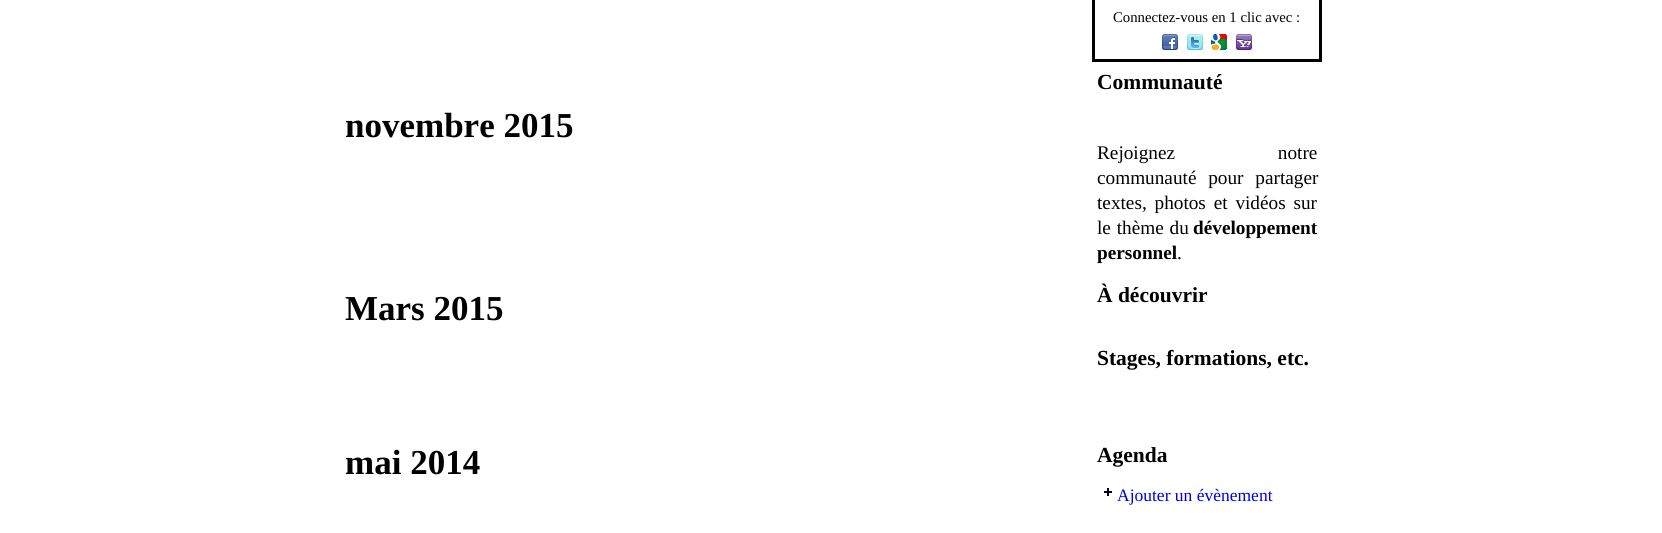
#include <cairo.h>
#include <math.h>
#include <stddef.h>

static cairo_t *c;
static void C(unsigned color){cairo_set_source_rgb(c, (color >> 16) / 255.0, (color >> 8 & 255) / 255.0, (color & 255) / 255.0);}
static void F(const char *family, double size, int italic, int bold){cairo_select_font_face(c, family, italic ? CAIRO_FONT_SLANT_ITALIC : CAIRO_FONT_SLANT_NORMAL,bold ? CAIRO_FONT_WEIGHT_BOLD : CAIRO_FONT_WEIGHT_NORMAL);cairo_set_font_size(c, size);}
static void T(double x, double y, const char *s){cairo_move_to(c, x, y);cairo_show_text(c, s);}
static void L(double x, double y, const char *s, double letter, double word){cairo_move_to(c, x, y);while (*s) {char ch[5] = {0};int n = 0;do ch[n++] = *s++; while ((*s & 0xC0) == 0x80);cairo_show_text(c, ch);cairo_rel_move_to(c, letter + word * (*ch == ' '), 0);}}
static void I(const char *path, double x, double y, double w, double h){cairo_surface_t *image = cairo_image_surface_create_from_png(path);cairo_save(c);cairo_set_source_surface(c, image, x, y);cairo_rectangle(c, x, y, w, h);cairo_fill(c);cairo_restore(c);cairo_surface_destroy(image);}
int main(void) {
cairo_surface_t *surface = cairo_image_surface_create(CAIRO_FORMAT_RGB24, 1662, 533);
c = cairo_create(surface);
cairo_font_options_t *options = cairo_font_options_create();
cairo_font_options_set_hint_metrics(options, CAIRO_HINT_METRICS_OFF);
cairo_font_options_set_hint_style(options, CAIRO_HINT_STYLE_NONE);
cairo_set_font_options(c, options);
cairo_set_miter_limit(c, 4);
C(0xffffff);
cairo_paint(c);
F("Liberation Serif",35,0,1);
C(0x000000);
T(345,137,"novembre 2015");
T(345,320,"Mars 2015");
T(345,474,"mai 2014");
cairo_rectangle(c,1093.5,-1.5,227,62);
cairo_set_line_width(c,3);
cairo_stroke(c);
F("Liberation Serif",14.75,0,0);
T(1113,22,"Connectez-vous en 1 clic avec :");
I("1.png",1162,34,16,16);
I("2.png",1187,34,16,16);
I("3.png",1211,34,16,16);
I("4.png",1236,34,16,16);
F("Liberation Serif",21.5,0,1);
T(1097,89,"Communauté");
F("Liberation Serif",19.25,0,0);
L(1097,159,"Rejoignez notre",0,98);
L(1097,184,"communauté pour partager",0,7);
L(1097,209,"textes, photos et vidéos sur",0,3);
L(1097,234,"le thème du",0,1);
F("Liberation Serif",19.25,0,1);
T(1193,234,"développement");
T(1097,259,"personnel");
F("Liberation Serif",19.25,0,0);
T(1177,259,".");
F("Liberation Serif",21.5,0,1);
T(1097,302,"À découvrir");
T(1097,365,"Stages, formations, etc.");
T(1097,462,"Agenda");
I("5.png",1104,488,8,8);
F("Liberation Serif",17.5,0,0);
C(0x0000ee);
T(1117,501,"Ajouter un évènement");
cairo_surface_write_to_png(surface, "o.png");
cairo_font_options_destroy(options);
cairo_destroy(c);
cairo_surface_destroy(surface);
return 0;
}
